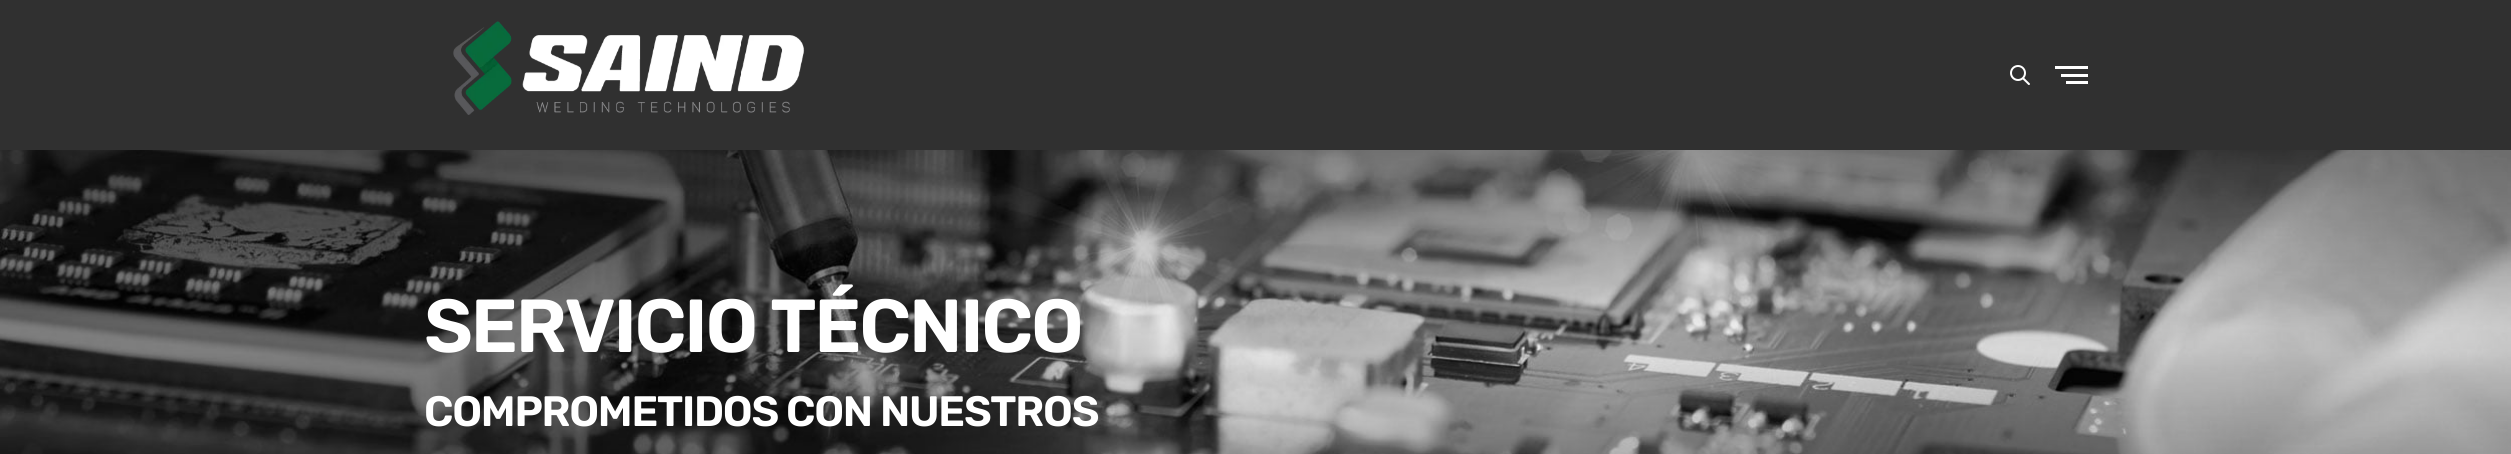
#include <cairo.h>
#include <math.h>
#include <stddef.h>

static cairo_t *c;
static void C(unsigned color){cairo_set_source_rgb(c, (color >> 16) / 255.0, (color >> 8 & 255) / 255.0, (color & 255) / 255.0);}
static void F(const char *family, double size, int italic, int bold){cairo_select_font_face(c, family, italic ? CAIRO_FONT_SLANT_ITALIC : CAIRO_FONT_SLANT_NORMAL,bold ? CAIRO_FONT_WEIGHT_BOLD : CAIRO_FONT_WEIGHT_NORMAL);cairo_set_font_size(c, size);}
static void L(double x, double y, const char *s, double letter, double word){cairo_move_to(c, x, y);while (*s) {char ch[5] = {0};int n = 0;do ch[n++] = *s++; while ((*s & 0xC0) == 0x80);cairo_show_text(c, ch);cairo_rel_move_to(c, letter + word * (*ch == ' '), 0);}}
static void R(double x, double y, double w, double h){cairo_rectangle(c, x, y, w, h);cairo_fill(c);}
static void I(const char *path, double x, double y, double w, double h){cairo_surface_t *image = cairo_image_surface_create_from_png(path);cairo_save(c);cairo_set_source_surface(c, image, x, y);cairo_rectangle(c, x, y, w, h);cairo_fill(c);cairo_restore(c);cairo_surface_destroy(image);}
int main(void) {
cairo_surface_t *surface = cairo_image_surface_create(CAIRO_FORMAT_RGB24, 2511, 454);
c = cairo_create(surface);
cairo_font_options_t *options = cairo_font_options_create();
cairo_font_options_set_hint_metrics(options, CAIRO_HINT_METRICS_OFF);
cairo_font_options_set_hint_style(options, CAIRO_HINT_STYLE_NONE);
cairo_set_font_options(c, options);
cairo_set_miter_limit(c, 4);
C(0xffffff);
cairo_paint(c);
C(0x303030);
R(0,0,2511,150);
I("1.png",453,21,352,94);
I("2.png",2010,65,20,20);
C(0xffffff);
R(2055,66,33,3);
R(2061,74,27,3);
R(2066,81,22,3);
I("3.png",0,150,2511,304);
F("Rubik SemiBold",75,0,0);
L(424,352,"SERVICIO TÉCNICO",-2.25,0);
F("Rubik SemiBold",42.5,0,0);
L(424,426,"COMPROMETIDOS CON NUESTROS",-1.25,0);
cairo_surface_write_to_png(surface, "o.png");
cairo_font_options_destroy(options);
cairo_destroy(c);
cairo_surface_destroy(surface);
return 0;
}
